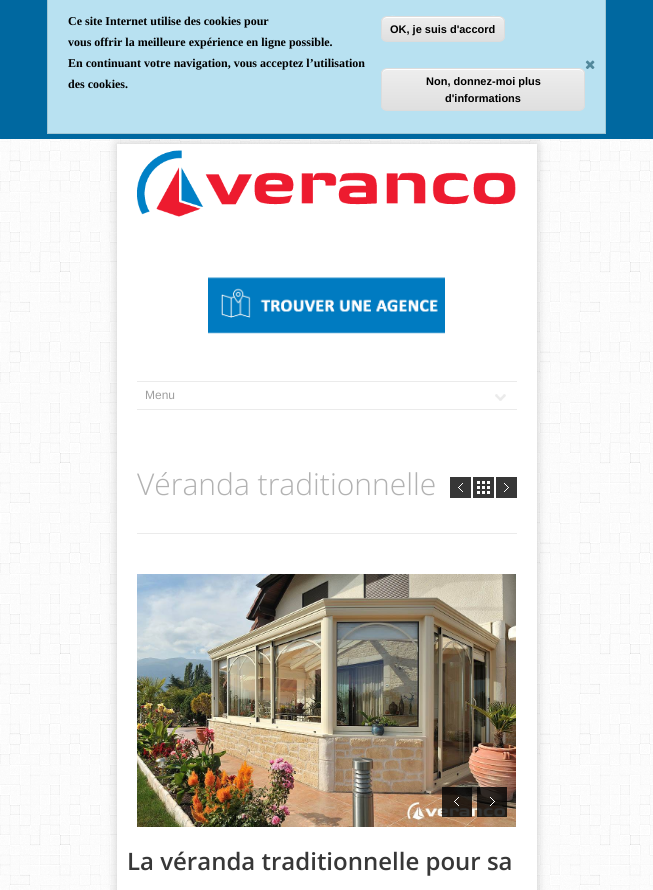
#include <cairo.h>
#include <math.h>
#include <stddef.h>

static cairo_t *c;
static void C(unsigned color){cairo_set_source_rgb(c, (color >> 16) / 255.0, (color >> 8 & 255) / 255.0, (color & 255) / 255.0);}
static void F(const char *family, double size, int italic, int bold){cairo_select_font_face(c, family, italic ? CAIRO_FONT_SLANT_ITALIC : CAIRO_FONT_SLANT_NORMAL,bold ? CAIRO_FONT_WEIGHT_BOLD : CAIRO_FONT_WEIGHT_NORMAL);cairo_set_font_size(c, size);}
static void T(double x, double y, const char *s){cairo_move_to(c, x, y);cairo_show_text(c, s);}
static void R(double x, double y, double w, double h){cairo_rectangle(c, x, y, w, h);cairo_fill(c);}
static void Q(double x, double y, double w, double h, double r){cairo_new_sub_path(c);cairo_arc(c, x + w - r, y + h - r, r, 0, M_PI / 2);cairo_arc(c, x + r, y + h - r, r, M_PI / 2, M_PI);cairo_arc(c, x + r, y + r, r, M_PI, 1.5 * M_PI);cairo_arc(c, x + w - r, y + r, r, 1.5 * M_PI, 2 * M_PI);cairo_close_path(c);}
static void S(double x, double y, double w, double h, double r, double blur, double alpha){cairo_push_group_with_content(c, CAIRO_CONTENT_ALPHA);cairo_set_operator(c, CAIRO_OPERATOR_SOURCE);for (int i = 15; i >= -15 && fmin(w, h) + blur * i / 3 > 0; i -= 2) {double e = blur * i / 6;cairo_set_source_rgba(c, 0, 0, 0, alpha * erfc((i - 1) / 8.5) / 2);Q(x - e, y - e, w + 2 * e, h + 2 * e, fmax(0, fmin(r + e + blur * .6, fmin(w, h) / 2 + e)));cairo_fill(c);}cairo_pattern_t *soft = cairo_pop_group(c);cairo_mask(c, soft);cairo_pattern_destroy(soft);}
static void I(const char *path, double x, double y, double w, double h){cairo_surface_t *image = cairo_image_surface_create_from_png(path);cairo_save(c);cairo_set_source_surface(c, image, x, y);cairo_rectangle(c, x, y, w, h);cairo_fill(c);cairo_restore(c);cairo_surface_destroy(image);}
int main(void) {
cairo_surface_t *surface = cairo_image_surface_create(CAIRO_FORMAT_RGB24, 653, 890);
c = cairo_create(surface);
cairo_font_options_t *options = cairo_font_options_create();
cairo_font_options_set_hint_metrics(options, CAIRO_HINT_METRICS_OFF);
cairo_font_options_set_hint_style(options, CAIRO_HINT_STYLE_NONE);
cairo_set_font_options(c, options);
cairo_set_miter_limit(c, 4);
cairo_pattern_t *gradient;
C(0xffffff);
cairo_paint(c);
I("1.png",0,139,653,751);
C(0x000000);
S(117,144,420,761,0,5,.2);
C(0x0068a0);
R(0,0,653,139);
C(0xb8e1f1);
cairo_rectangle(c,47.5,-.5,558,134);
cairo_fill_preserve(c);
C(0xa1c7d5);
cairo_set_line_width(c,1);
cairo_stroke(c);
F("Liberation Serif",12,0,1);
C(0x000000);
T(68,25,"Ce site Internet utilise des cookies pour");
T(68,46,"vous offrir la meilleure expérience en ligne possible.");
T(68,67,"En continuant votre navigation, vous acceptez l’utilisation");
T(68,88,"des cookies.");
cairo_save(c);
Q(381,16,124,26,6);
cairo_clip(c);
gradient = cairo_pattern_create_linear(443,17,443,41);
cairo_pattern_add_color_stop_rgba(gradient,.05,0.929,0.929,0.929,1);
cairo_pattern_add_color_stop_rgba(gradient,1,0.875,0.875,0.875,1);
cairo_set_source(c,gradient);
cairo_pattern_destroy(gradient);
R(381,17,124,24);
cairo_restore(c);
C(0xffffff);
cairo_new_path(c);
cairo_move_to(c,387,18);
cairo_line_to(c,499,18);
cairo_curve_to(c,502,18,504,20,504,23);
cairo_curve_to(c,504,12,485,17,480,17);
cairo_line_to(c,406,17);
cairo_curve_to(c,401,17,382,12,382,23);
cairo_curve_to(c,382,20,384,18,387,18);
cairo_close_path(c);
cairo_fill(c);
Q(381.5,16.5,123,25,5.5);
C(0xdcdcdc);
cairo_stroke(c);
F("Liberation Sans",11,0,1);
C(0x000000);
T(390,33,"OK, je suis d'accord");
cairo_save(c);
Q(381,68,204,43,6);
cairo_clip(c);
gradient = cairo_pattern_create_linear(483,69,483,110);
cairo_pattern_add_color_stop_rgba(gradient,.05,0.929,0.929,0.929,1);
cairo_pattern_add_color_stop_rgba(gradient,1,0.875,0.875,0.875,1);
cairo_set_source(c,gradient);
cairo_pattern_destroy(gradient);
R(381,69,204,41);
cairo_restore(c);
C(0xffffff);
cairo_new_path(c);
cairo_move_to(c,387,70);
cairo_line_to(c,579,70);
cairo_curve_to(c,582,70,584,72,584,75);
cairo_line_to(c,584,74);
cairo_curve_to(c,584,71,582,69,579,69);
cairo_line_to(c,387,69);
cairo_curve_to(c,384,69,382,71,382,74);
cairo_line_to(c,382,75);
cairo_curve_to(c,382,72,384,70,387,70);
cairo_close_path(c);
cairo_fill(c);
Q(381.5,68.5,203,42,5.5);
C(0xdcdcdc);
cairo_stroke(c);
C(0x000000);
T(426,85,"Non, donnez-moi plus");
T(445,102,"d'informations");
I("2.png",585,60,10,9);
C(0xffffff);
R(117,144,420,746);
I("3.png",137,150,379,67);
I("4.png",208,277,237,57);
I("5.png",495,394,11,7);
C(0xebebeb);
R(137,381,380,1);
R(137,409,380,1);
F("Liberation Sans",12,0,0);
C(0x9e9e9e);
T(145,399,"Menu");
C(0xebebeb);
R(137,533,380,1);
F("Open Sans Light",30,0,0);
C(0xb2b2b2);
T(137,495,"Véranda traditionnelle");
C(0x373737);
R(450,477,21,21);
I("6.png",458,483,5,9);
R(473,477,21,21);
I("7.png",477,481,13,13);
R(496,477,21,21);
I("8.png",504,483,5,9);
I("9.png",137,574,379,253);
cairo_set_source_rgba(c,0,0,0,0.8);
R(442,787,30,30);
I("10.png",454,797,5,9);
R(477,787,30,30);
I("11.png",490,797,5,9);
F("Open Sans SemiBold",24,0,0);
C(0x373737);
T(127,870,"La véranda traditionnelle pour sa");
cairo_surface_write_to_png(surface, "o.png");
cairo_font_options_destroy(options);
cairo_destroy(c);
cairo_surface_destroy(surface);
return 0;
}
